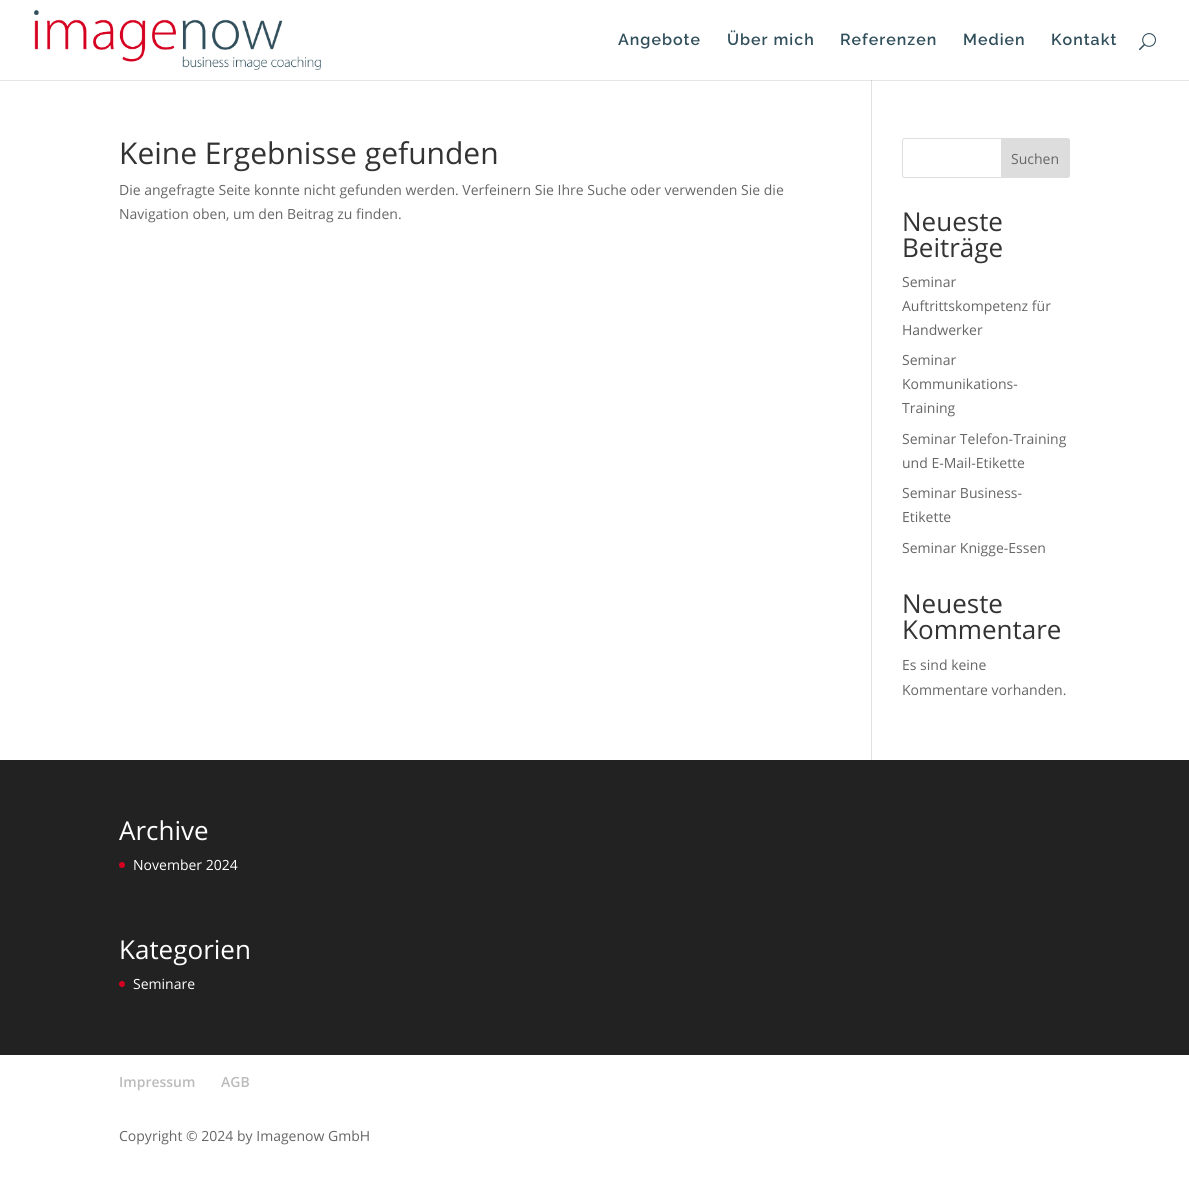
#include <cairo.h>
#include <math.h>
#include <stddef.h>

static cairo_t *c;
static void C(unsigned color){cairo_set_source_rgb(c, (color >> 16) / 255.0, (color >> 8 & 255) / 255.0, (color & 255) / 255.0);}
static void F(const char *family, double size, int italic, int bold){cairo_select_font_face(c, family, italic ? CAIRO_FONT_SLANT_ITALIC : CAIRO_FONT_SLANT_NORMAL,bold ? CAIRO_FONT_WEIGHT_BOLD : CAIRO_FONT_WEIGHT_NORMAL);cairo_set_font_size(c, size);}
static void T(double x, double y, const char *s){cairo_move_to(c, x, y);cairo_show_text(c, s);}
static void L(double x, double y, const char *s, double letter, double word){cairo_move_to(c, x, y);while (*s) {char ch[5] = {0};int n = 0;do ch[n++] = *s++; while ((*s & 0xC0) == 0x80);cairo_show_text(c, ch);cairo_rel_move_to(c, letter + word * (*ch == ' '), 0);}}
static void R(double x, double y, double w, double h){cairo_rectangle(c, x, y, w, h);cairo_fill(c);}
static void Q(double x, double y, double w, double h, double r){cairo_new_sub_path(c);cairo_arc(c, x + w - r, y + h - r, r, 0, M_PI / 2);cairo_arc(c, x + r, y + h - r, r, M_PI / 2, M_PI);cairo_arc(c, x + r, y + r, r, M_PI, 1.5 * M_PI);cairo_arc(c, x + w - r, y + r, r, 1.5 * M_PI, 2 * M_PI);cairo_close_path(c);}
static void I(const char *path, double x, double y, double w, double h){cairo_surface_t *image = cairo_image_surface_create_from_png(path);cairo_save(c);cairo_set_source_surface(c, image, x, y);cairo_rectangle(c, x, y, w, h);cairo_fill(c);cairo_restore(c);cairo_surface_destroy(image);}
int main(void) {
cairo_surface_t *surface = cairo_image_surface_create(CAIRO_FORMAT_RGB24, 1189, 1178);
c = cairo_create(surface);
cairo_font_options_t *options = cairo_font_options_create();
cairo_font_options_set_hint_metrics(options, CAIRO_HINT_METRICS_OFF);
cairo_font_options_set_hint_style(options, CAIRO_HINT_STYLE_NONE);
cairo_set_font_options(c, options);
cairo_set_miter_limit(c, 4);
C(0xffffff);
cairo_paint(c);
C(0xe6e6e6);
R(0,80,1189,1);
I("1.png",34,10,287,60);
F("Raleway Thin",16,0,0);
C(0x314e5b);
L(618,45,"Angebote",1,0);
L(727,45,"Über mich",1,0);
L(840,45,"Referenzen",1,0);
L(963,45,"Medien",1,0);
L(1051,45,"Kontakt",1,0);
I("2.png",1139,33,17,18);
C(0xe2e2e2);
R(871,80,1,680);
C(0xcbcbcb);
R(871,80,1,1);
F("Open Sans",30,0,0);
C(0x333333);
T(119,164,"Keine Ergebnisse gefunden");
F("Open Sans",14,0,0);
C(0x666666);
T(119,195,"Die angefragte Seite konnte nicht gefunden werden. Verfeinern Sie Ihre Suche oder verwenden Sie die");
T(119,219,"Navigation oben, um den Beitrag zu finden.");
Q(902.5,138.5,167,39,2.5);
C(0xdddddd);
cairo_set_line_width(c,1);
cairo_stroke(c);
cairo_new_path(c);
cairo_move_to(c,1001.5,138.5);
cairo_line_to(c,1067,138.5);
cairo_curve_to(c,1068.5,138.5,1069.5,139.5,1069.5,141);
cairo_line_to(c,1069.5,175);
cairo_curve_to(c,1069.5,176.5,1068.5,177.5,1067,177.5);
cairo_line_to(c,1001.5,177.5);
cairo_close_path(c);
cairo_fill_preserve(c);
cairo_stroke(c);
C(0x666666);
T(1011,164,"Suchen");
F("Open Sans",26,0,0);
C(0x333333);
T(902,231,"Neueste");
T(902,257,"Beiträge");
F("Open Sans",14,0,0);
C(0x666666);
T(902,287,"Seminar");
T(902,311,"Auftrittskompetenz für");
T(902,335,"Handwerker");
T(902,365,"Seminar");
T(902,389,"Kommunikations-");
T(902,413,"Training");
T(902,444,"Seminar Telefon-Training");
T(902,468,"und E-Mail-Etikette");
T(902,498,"Seminar Business-");
T(902,522,"Etikette");
T(902,553,"Seminar Knigge-Essen");
F("Open Sans",26,0,0);
C(0x333333);
T(902,613,"Neueste");
T(902,639,"Kommentare");
F("Open Sans",14,0,0);
C(0x666666);
T(902,670,"Es sind keine");
T(902,695,"Kommentare vorhanden.");
C(0x222222);
R(0,760,1189,295);
F("Open Sans",26,0,0);
C(0xffffff);
T(119,840,"Archive");
C(0xd60020);
cairo_new_path(c);
cairo_arc(c,122,865,3,0,2 * M_PI);
cairo_fill(c);
F("Open Sans",14,0,0);
C(0xffffff);
T(133,870,"November 2024");
F("Open Sans",26,0,0);
T(119,959,"Kategorien");
C(0xd60020);
cairo_new_path(c);
cairo_arc(c,122,984,3,0,2 * M_PI);
cairo_fill(c);
F("Open Sans",14,0,0);
C(0xffffff);
T(133,989,"Seminare");
F("Open Sans SemiBold",14,0,0);
C(0xbbbbbb);
T(119,1087,"Impressum");
T(221,1087,"AGB");
F("Open Sans",14,0,0);
C(0x666666);
T(119,1141,"Copyright © 2024 by Imagenow GmbH");
cairo_surface_write_to_png(surface, "o.png");
cairo_font_options_destroy(options);
cairo_destroy(c);
cairo_surface_destroy(surface);
return 0;
}
